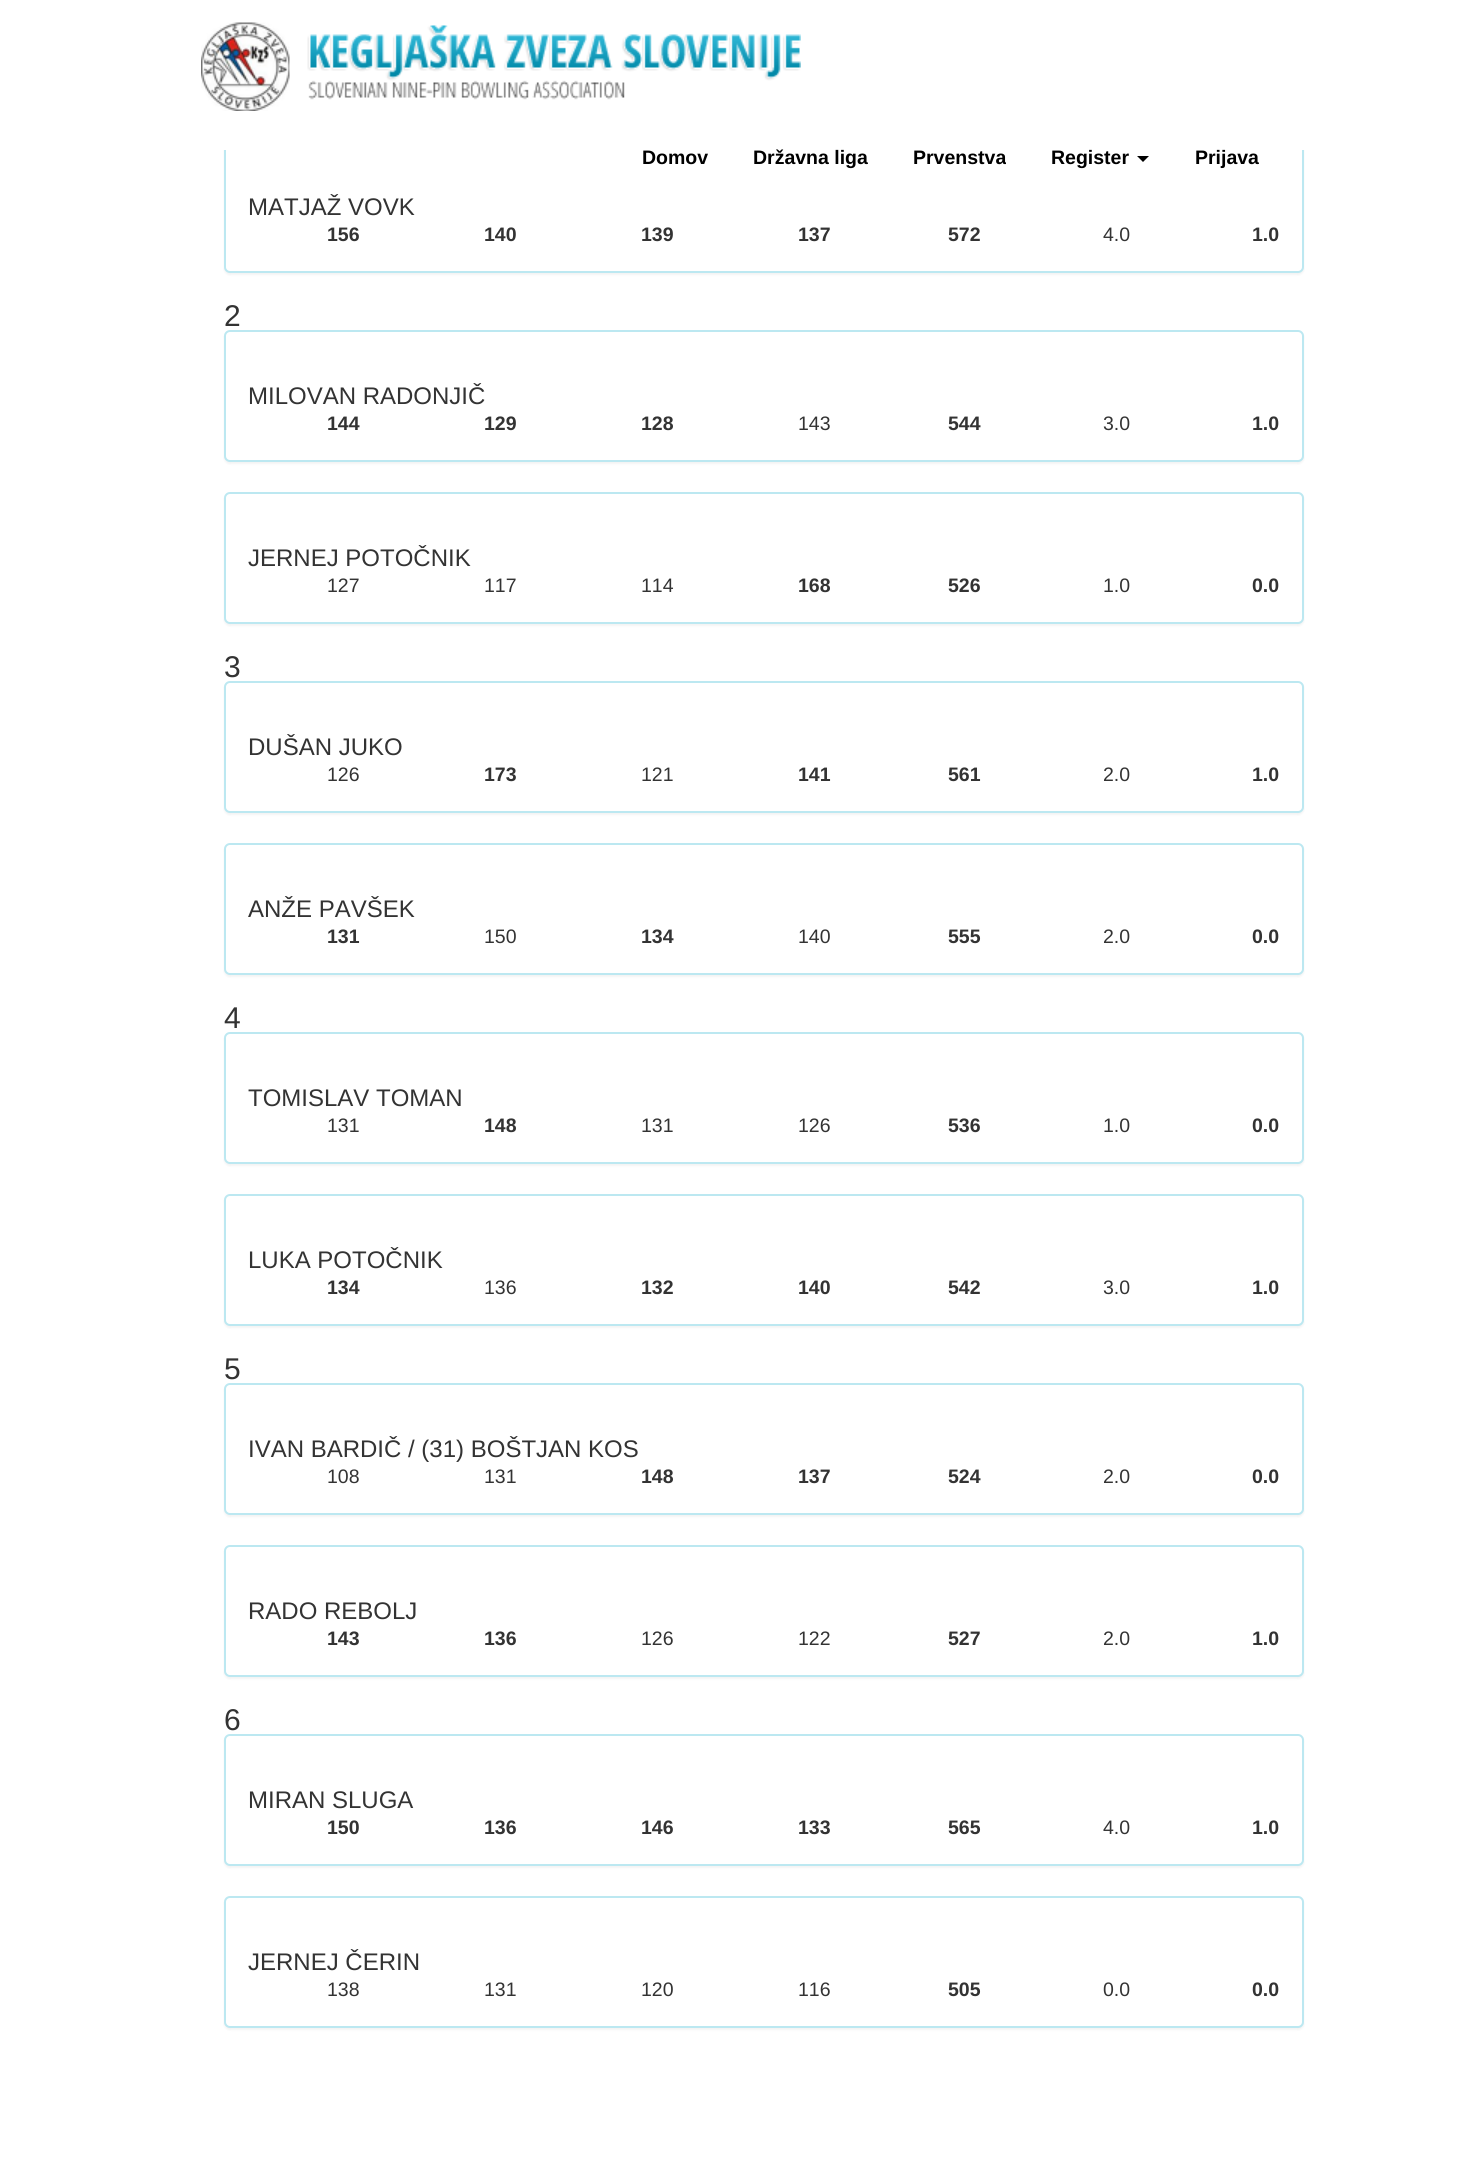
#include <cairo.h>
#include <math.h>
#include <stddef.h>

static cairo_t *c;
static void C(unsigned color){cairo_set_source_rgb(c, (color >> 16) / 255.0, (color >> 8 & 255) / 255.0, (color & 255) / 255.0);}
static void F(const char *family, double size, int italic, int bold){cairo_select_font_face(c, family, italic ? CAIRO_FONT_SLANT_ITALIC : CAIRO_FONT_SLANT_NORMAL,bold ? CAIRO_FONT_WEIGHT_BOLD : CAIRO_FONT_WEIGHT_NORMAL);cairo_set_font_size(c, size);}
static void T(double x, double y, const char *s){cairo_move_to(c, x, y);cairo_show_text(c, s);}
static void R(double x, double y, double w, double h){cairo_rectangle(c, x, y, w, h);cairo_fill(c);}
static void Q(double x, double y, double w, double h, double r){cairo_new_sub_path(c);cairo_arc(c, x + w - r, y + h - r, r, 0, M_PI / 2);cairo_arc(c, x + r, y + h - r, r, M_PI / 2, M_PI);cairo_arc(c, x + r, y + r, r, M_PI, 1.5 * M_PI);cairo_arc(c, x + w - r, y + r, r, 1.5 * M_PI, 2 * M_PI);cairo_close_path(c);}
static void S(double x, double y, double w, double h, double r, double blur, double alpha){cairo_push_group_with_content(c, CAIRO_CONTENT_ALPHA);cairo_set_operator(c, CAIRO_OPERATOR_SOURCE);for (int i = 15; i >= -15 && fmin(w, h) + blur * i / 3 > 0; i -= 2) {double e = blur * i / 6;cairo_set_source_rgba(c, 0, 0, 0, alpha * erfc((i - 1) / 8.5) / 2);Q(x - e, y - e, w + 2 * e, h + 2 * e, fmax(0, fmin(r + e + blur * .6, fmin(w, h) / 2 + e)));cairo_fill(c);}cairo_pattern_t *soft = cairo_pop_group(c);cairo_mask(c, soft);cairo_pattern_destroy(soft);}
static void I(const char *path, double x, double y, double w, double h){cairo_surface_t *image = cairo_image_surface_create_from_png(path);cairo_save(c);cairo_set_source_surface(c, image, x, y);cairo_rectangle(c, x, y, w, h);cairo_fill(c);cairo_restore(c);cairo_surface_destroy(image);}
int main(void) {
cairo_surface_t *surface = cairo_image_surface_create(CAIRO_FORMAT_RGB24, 1482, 2177);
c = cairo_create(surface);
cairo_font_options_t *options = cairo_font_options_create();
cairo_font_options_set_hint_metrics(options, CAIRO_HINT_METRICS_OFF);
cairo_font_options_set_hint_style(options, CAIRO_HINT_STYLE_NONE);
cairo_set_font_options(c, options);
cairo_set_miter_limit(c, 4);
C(0xffffff);
cairo_paint(c);
C(0x000000);
S(224,143,1080,132,6,1,.05);
C(0xffffff);
Q(225,142,1078,130,5);
cairo_fill_preserve(c);
C(0xbce8f1);
cairo_stroke(c);
C(0xffffff);
R(223,141,1082,9);
I("1.png",201,22,600,89);
F("Liberation Sans",19.5,0,1);
C(0x000000);
T(642,164,"Domov");
T(753,164,"Državna liga");
T(913,164,"Prvenstva");
T(1051,164,"Register");
cairo_new_path(c);
cairo_move_to(c,1137,156);
cairo_line_to(c,1149,156);
cairo_line_to(c,1143,162);
cairo_close_path(c);
cairo_fill(c);
T(1195,164,"Prijava");
F("Liberation Sans",24,0,0);
C(0x333333);
T(248,215,"MATJAŽ VOVK");
F("Liberation Sans",19.5,0,1);
T(327,241,"156");
T(484,241,"140");
T(641,241,"139");
T(798,241,"137");
T(948,241,"572");
F("Liberation Sans",19.5,0,0);
T(1103,241,"4.0");
F("Liberation Sans",19.5,0,1);
T(1252,241,"1.0");
F("Liberation Sans",30,0,0);
T(224,326,"2");
C(0x000000);
S(224,332,1080,132,6,1,.05);
C(0xffffff);
Q(225,331,1078,130,5);
cairo_fill_preserve(c);
C(0xbce8f1);
cairo_stroke(c);
F("Liberation Sans",24,0,0);
C(0x333333);
T(248,404,"MILOVAN RADONJIČ");
F("Liberation Sans",19.5,0,1);
T(327,430,"144");
T(484,430,"129");
T(641,430,"128");
F("Liberation Sans",19.5,0,0);
T(798,430,"143");
F("Liberation Sans",19.5,0,1);
T(948,430,"544");
F("Liberation Sans",19.5,0,0);
T(1103,430,"3.0");
F("Liberation Sans",19.5,0,1);
T(1252,430,"1.0");
C(0x000000);
S(224,494,1080,132,6,1,.05);
C(0xffffff);
Q(225,493,1078,130,5);
cairo_fill_preserve(c);
C(0xbce8f1);
cairo_stroke(c);
F("Liberation Sans",24,0,0);
C(0x333333);
T(248,566,"JERNEJ POTOČNIK");
F("Liberation Sans",19.5,0,0);
T(327,592,"127");
T(484,592,"117");
T(641,592,"114");
F("Liberation Sans",19.5,0,1);
T(798,592,"168");
T(948,592,"526");
F("Liberation Sans",19.5,0,0);
T(1103,592,"1.0");
F("Liberation Sans",19.5,0,1);
T(1252,592,"0.0");
F("Liberation Sans",30,0,0);
T(224,677,"3");
C(0x000000);
S(224,683,1080,132,6,1,.05);
C(0xffffff);
Q(225,682,1078,130,5);
cairo_fill_preserve(c);
C(0xbce8f1);
cairo_stroke(c);
F("Liberation Sans",24,0,0);
C(0x333333);
T(248,755,"DUŠAN JUKO");
F("Liberation Sans",19.5,0,0);
T(327,781,"126");
F("Liberation Sans",19.5,0,1);
T(484,781,"173");
F("Liberation Sans",19.5,0,0);
T(641,781,"121");
F("Liberation Sans",19.5,0,1);
T(798,781,"141");
T(948,781,"561");
F("Liberation Sans",19.5,0,0);
T(1103,781,"2.0");
F("Liberation Sans",19.5,0,1);
T(1252,781,"1.0");
C(0x000000);
S(224,845,1080,132,6,1,.05);
C(0xffffff);
Q(225,844,1078,130,5);
cairo_fill_preserve(c);
C(0xbce8f1);
cairo_stroke(c);
F("Liberation Sans",24,0,0);
C(0x333333);
T(248,917,"ANŽE PAVŠEK");
F("Liberation Sans",19.5,0,1);
T(327,943,"131");
F("Liberation Sans",19.5,0,0);
T(484,943,"150");
F("Liberation Sans",19.5,0,1);
T(641,943,"134");
F("Liberation Sans",19.5,0,0);
T(798,943,"140");
F("Liberation Sans",19.5,0,1);
T(948,943,"555");
F("Liberation Sans",19.5,0,0);
T(1103,943,"2.0");
F("Liberation Sans",19.5,0,1);
T(1252,943,"0.0");
F("Liberation Sans",30,0,0);
T(224,1028,"4");
C(0x000000);
S(224,1034,1080,132,6,1,.05);
C(0xffffff);
Q(225,1033,1078,130,5);
cairo_fill_preserve(c);
C(0xbce8f1);
cairo_stroke(c);
F("Liberation Sans",24,0,0);
C(0x333333);
T(248,1106,"TOMISLAV TOMAN");
F("Liberation Sans",19.5,0,0);
T(327,1132,"131");
F("Liberation Sans",19.5,0,1);
T(484,1132,"148");
F("Liberation Sans",19.5,0,0);
T(641,1132,"131");
T(798,1132,"126");
F("Liberation Sans",19.5,0,1);
T(948,1132,"536");
F("Liberation Sans",19.5,0,0);
T(1103,1132,"1.0");
F("Liberation Sans",19.5,0,1);
T(1252,1132,"0.0");
C(0x000000);
S(224,1196,1080,132,6,1,.05);
C(0xffffff);
Q(225,1195,1078,130,5);
cairo_fill_preserve(c);
C(0xbce8f1);
cairo_stroke(c);
F("Liberation Sans",24,0,0);
C(0x333333);
T(248,1268,"LUKA POTOČNIK");
F("Liberation Sans",19.5,0,1);
T(327,1294,"134");
F("Liberation Sans",19.5,0,0);
T(484,1294,"136");
F("Liberation Sans",19.5,0,1);
T(641,1294,"132");
T(798,1294,"140");
T(948,1294,"542");
F("Liberation Sans",19.5,0,0);
T(1103,1294,"3.0");
F("Liberation Sans",19.5,0,1);
T(1252,1294,"1.0");
F("Liberation Sans",30,0,0);
T(224,1379,"5");
C(0x000000);
S(224,1385,1080,132,6,1,.05);
C(0xffffff);
Q(225,1384,1078,130,5);
cairo_fill_preserve(c);
C(0xbce8f1);
cairo_stroke(c);
F("Liberation Sans",24,0,0);
C(0x333333);
T(248,1457,"IVAN BARDIČ / (31) BOŠTJAN KOS");
F("Liberation Sans",19.5,0,0);
T(327,1483,"108");
T(484,1483,"131");
F("Liberation Sans",19.5,0,1);
T(641,1483,"148");
T(798,1483,"137");
T(948,1483,"524");
F("Liberation Sans",19.5,0,0);
T(1103,1483,"2.0");
F("Liberation Sans",19.5,0,1);
T(1252,1483,"0.0");
C(0x000000);
S(224,1547,1080,132,6,1,.05);
C(0xffffff);
Q(225,1546,1078,130,5);
cairo_fill_preserve(c);
C(0xbce8f1);
cairo_stroke(c);
F("Liberation Sans",24,0,0);
C(0x333333);
T(248,1619,"RADO REBOLJ");
F("Liberation Sans",19.5,0,1);
T(327,1645,"143");
T(484,1645,"136");
F("Liberation Sans",19.5,0,0);
T(641,1645,"126");
T(798,1645,"122");
F("Liberation Sans",19.5,0,1);
T(948,1645,"527");
F("Liberation Sans",19.5,0,0);
T(1103,1645,"2.0");
F("Liberation Sans",19.5,0,1);
T(1252,1645,"1.0");
F("Liberation Sans",30,0,0);
T(224,1730,"6");
C(0x000000);
S(224,1736,1080,132,6,1,.05);
C(0xffffff);
Q(225,1735,1078,130,5);
cairo_fill_preserve(c);
C(0xbce8f1);
cairo_stroke(c);
F("Liberation Sans",24,0,0);
C(0x333333);
T(248,1808,"MIRAN SLUGA");
F("Liberation Sans",19.5,0,1);
T(327,1834,"150");
T(484,1834,"136");
T(641,1834,"146");
T(798,1834,"133");
T(948,1834,"565");
F("Liberation Sans",19.5,0,0);
T(1103,1834,"4.0");
F("Liberation Sans",19.5,0,1);
T(1252,1834,"1.0");
C(0x000000);
S(224,1898,1080,132,6,1,.05);
C(0xffffff);
Q(225,1897,1078,130,5);
cairo_fill_preserve(c);
C(0xbce8f1);
cairo_stroke(c);
F("Liberation Sans",24,0,0);
C(0x333333);
T(248,1970,"JERNEJ ČERIN");
F("Liberation Sans",19.5,0,0);
T(327,1996,"138");
T(484,1996,"131");
T(641,1996,"120");
T(798,1996,"116");
F("Liberation Sans",19.5,0,1);
T(948,1996,"505");
F("Liberation Sans",19.5,0,0);
T(1103,1996,"0.0");
F("Liberation Sans",19.5,0,1);
T(1252,1996,"0.0");
cairo_surface_write_to_png(surface, "o.png");
cairo_font_options_destroy(options);
cairo_destroy(c);
cairo_surface_destroy(surface);
return 0;
}
